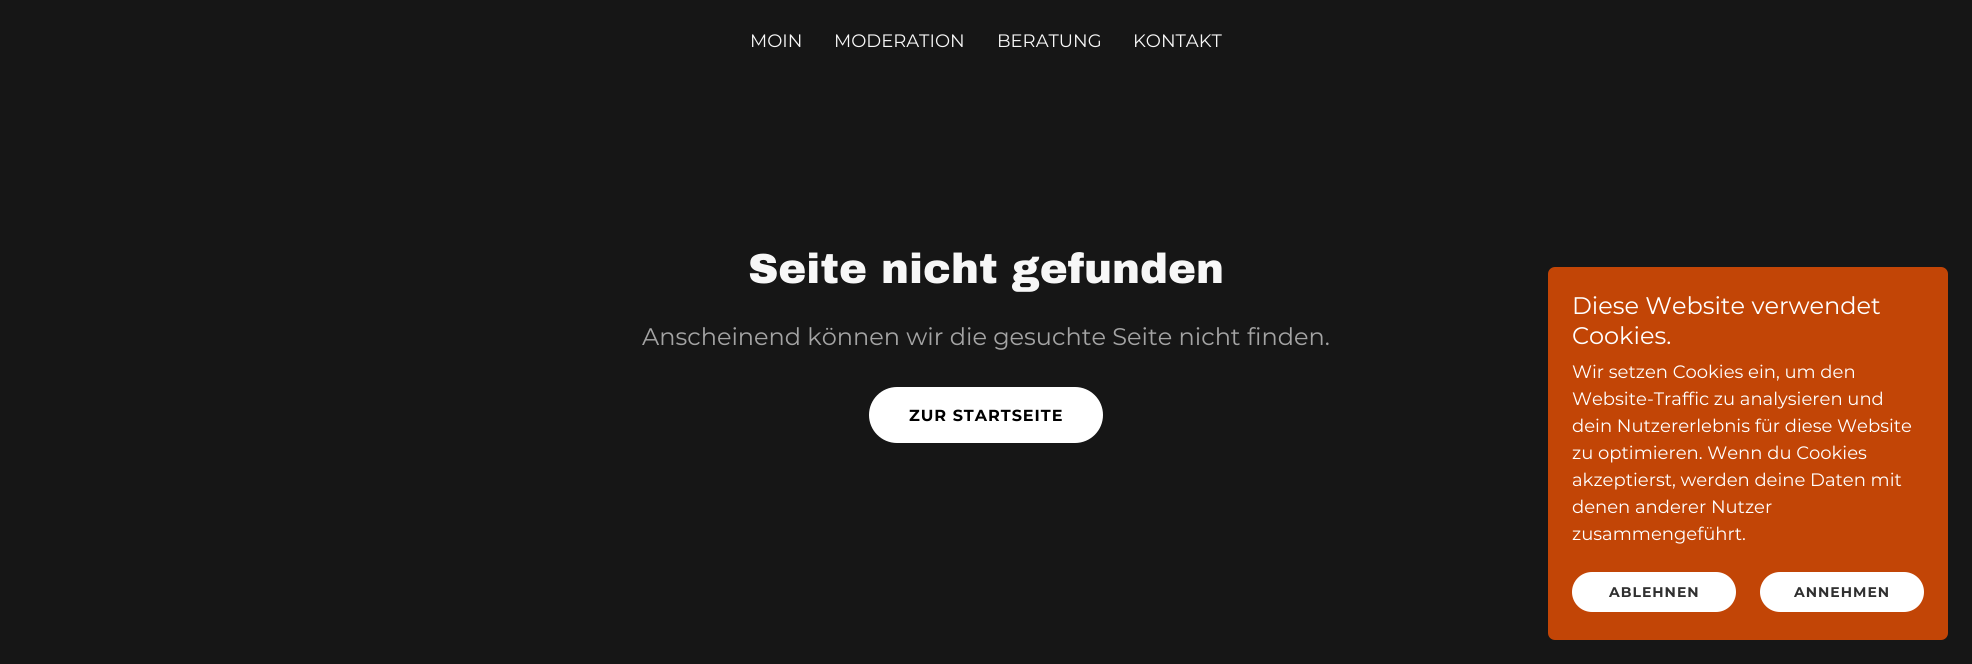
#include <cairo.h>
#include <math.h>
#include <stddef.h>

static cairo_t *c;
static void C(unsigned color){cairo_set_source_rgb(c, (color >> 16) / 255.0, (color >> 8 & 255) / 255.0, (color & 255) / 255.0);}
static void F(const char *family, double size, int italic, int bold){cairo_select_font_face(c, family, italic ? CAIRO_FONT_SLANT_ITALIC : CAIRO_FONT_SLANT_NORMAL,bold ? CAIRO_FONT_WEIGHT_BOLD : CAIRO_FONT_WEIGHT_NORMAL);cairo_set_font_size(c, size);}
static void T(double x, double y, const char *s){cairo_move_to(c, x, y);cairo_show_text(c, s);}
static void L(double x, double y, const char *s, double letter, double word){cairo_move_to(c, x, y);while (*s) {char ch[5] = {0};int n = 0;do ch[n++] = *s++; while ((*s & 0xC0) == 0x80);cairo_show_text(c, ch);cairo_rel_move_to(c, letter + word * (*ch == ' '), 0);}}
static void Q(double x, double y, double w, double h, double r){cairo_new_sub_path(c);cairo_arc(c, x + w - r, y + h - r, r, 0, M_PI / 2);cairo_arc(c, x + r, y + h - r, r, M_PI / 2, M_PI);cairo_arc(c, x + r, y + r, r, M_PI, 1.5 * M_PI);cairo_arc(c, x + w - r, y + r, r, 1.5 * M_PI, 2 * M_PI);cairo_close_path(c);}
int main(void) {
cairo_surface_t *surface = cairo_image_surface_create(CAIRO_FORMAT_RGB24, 1972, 664);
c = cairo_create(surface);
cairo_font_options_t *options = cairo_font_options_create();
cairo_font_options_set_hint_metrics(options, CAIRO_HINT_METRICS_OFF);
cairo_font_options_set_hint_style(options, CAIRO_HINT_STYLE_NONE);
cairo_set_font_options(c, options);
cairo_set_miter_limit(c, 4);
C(0x161616);
cairo_paint(c);
F("Montserrat",18,0,0);
C(0xf7f7f7);
T(750,47,"MOIN");
T(834,47,"MODERATION");
T(997,47,"BERATUNG");
T(1133,47,"KONTAKT");
F("Archivo Black Black",42,0,0);
T(748,283,"Seite nicht gefunden");
F("Montserrat",24,0,0);
C(0xa4a4a4);
T(642,345,"Anscheinend können wir die gesuchte Seite nicht finden.");
C(0xffffff);
Q(869,387,234,56,28);
cairo_fill(c);
F("Montserrat",16,0,1);
C(0x000000);
L(909,421,"ZUR STARTSEITE",1,0);
C(0xc24506);
Q(1548,267,400,373,7);
cairo_fill(c);
F("Montserrat",24,0,0);
C(0xffffff);
T(1572,314,"Diese Website verwendet");
T(1572,344,"Cookies.");
F("Montserrat",18,0,0);
T(1572,378,"Wir setzen Cookies ein, um den");
T(1572,405,"Website-Traffic zu analysieren und");
T(1572,432,"dein Nutzererlebnis für diese Website");
T(1572,459,"zu optimieren. Wenn du Cookies");
T(1572,486,"akzeptierst, werden deine Daten mit");
T(1572,513,"denen anderer Nutzer");
T(1572,540,"zusammengeführt.");
Q(1572,572,164,40,20);
cairo_fill(c);
F("Montserrat",14,0,1);
C(0x303030);
L(1609,597,"ABLEHNEN",1,0);
C(0xffffff);
Q(1760,572,164,40,20);
cairo_fill(c);
C(0x303030);
L(1794,597,"ANNEHMEN",1,0);
cairo_surface_write_to_png(surface, "o.png");
cairo_font_options_destroy(options);
cairo_destroy(c);
cairo_surface_destroy(surface);
return 0;
}
